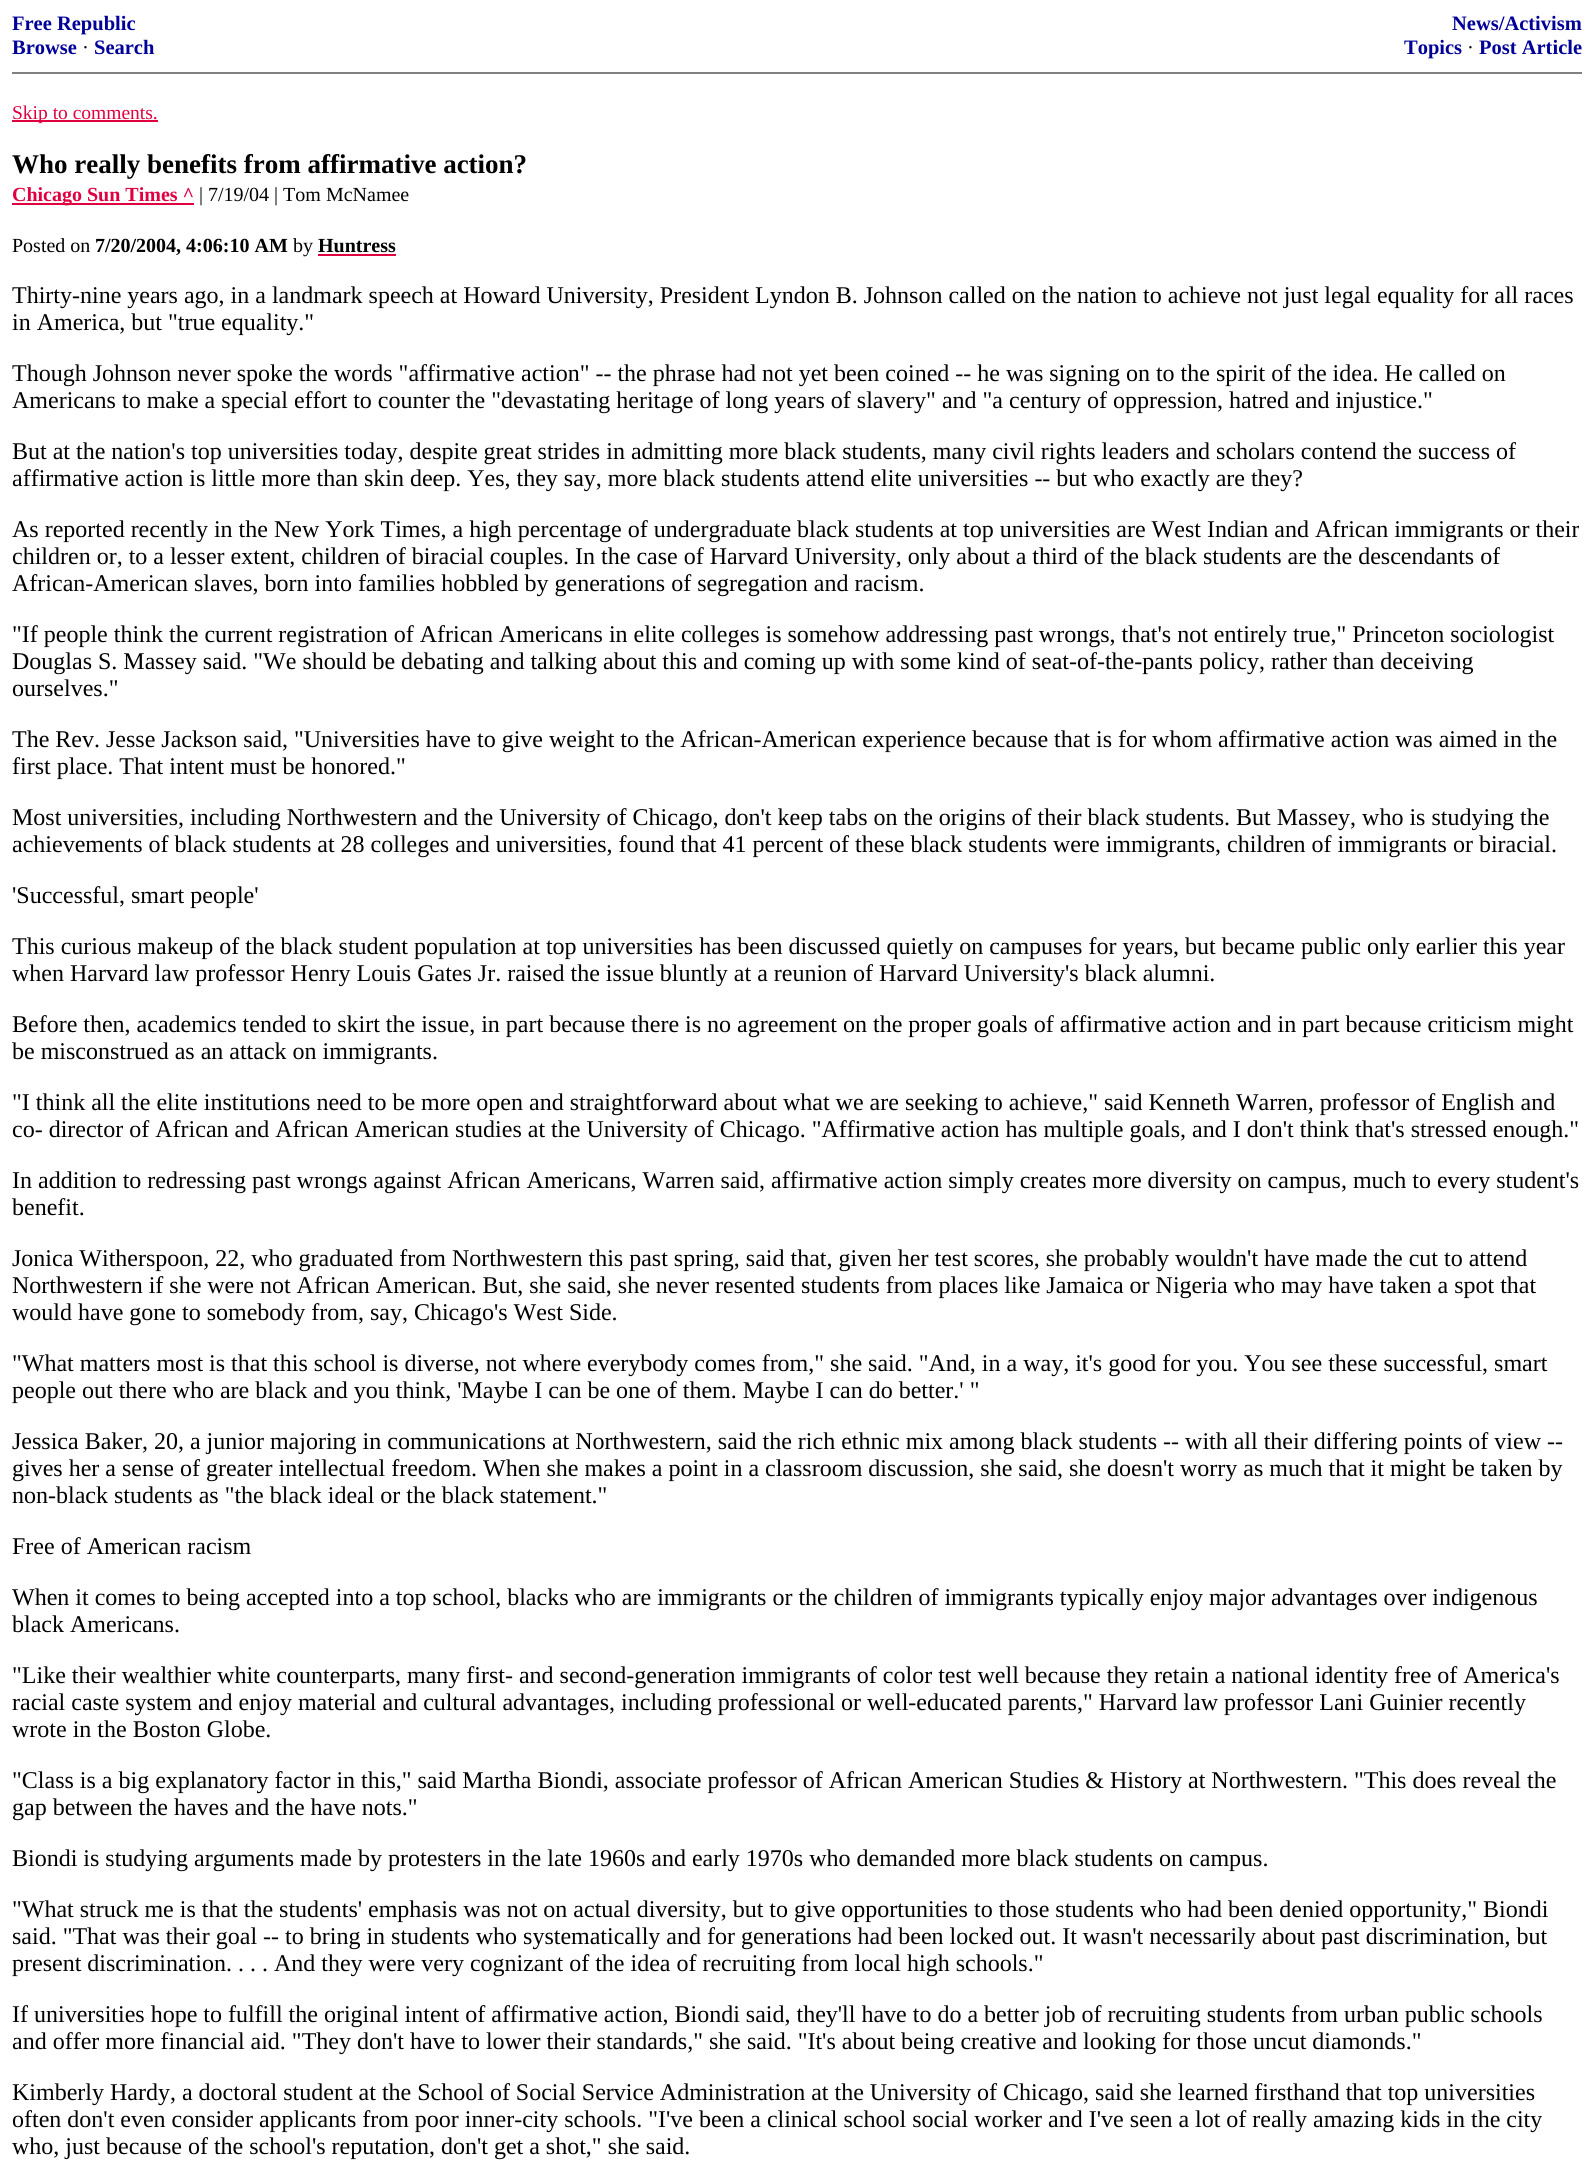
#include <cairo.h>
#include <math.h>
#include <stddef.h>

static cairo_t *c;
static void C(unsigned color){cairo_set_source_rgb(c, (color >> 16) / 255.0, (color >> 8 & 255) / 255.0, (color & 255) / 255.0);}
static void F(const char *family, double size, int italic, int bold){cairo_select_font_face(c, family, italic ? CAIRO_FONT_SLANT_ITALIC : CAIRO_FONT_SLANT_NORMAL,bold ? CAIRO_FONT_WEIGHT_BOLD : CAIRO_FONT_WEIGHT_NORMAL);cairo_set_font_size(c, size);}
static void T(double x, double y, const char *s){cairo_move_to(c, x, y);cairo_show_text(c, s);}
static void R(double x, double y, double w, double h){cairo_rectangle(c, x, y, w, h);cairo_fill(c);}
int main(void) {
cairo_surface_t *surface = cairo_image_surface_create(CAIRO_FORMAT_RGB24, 1592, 2169);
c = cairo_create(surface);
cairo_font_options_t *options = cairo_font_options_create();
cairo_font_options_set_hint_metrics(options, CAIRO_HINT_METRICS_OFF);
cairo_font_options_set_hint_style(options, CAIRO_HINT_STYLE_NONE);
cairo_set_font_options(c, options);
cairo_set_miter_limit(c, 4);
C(0xffffff);
cairo_paint(c);
F("Liberation Serif",20.5,0,1);
C(0x000099);
T(12,30,"Free Republic");
T(12,54,"Browse");
F("Liberation Serif",20.5,0,0);
C(0x000000);
T(82,54,"·");
F("Liberation Serif",20.5,0,1);
C(0x000099);
T(94,54,"Search");
T(1452,30,"News/Activism");
T(1404,54,"Topics");
F("Liberation Serif",20.5,0,0);
C(0x000000);
T(1467,54,"·");
F("Liberation Serif",20.5,0,1);
C(0x000099);
T(1479,54,"Post Article");
C(0x808080);
R(12,72,1570,2);
C(0xe00040);
R(12,120,146,2);
F("Liberation Serif",19.5,0,0);
T(12,119,"Skip to comments.");
F("Liberation Serif",27,0,1);
C(0x000000);
T(12,173,"Who really benefits from affirmative action?");
C(0xe00040);
R(12,203,182,2);
F("Liberation Serif",20,0,1);
T(12,201,"Chicago Sun Times ^");
F("Liberation Serif",20,0,0);
C(0x000000);
T(199,201,"| 7/19/04 | Tom McNamee");
T(12,252,"Posted on");
F("Liberation Serif",20,0,1);
T(95,252,"7/20/2004, 4:06:10 AM");
F("Liberation Serif",20,0,0);
T(293,252,"by");
F("Liberation Serif",20,0,1);
T(318,252,"Huntress");
C(0xe00040);
R(318,254,78,2);
F("Liberation Serif",24,0,0);
C(0x000000);
T(12,303,"Thirty-nine years ago, in a landmark speech at Howard University, President Lyndon B. Johnson called on the nation to achieve not just legal equality for all races");
T(12,330,"in America, but \"true equality.\"");
T(12,381,"Though Johnson never spoke the words \"affirmative action\" -- the phrase had not yet been coined -- he was signing on to the spirit of the idea. He called on");
T(12,408,"Americans to make a special effort to counter the \"devastating heritage of long years of slavery\" and \"a century of oppression, hatred and injustice.\"");
T(12,459,"But at the nation's top universities today, despite great strides in admitting more black students, many civil rights leaders and scholars contend the success of");
T(12,486,"affirmative action is little more than skin deep. Yes, they say, more black students attend elite universities -- but who exactly are they?");
T(12,537,"As reported recently in the New York Times, a high percentage of undergraduate black students at top universities are West Indian and African immigrants or their");
T(12,564,"children or, to a lesser extent, children of biracial couples. In the case of Harvard University, only about a third of the black students are the descendants of");
T(12,591,"African-American slaves, born into families hobbled by generations of segregation and racism.");
T(12,642,"\"If people think the current registration of African Americans in elite colleges is somehow addressing past wrongs, that's not entirely true,\" Princeton sociologist");
T(12,669,"Douglas S. Massey said. \"We should be debating and talking about this and coming up with some kind of seat-of-the-pants policy, rather than deceiving");
T(12,696,"ourselves.\"");
T(12,747,"The Rev. Jesse Jackson said, \"Universities have to give weight to the African-American experience because that is for whom affirmative action was aimed in the");
T(12,774,"first place. That intent must be honored.\"");
T(12,825,"Most universities, including Northwestern and the University of Chicago, don't keep tabs on the origins of their black students. But Massey, who is studying the");
T(12,852,"achievements of black students at 28 colleges and universities, found that 41 percent of these black students were immigrants, children of immigrants or biracial.");
T(12,903,"'Successful, smart people'");
T(12,954,"This curious makeup of the black student population at top universities has been discussed quietly on campuses for years, but became public only earlier this year");
T(12,981,"when Harvard law professor Henry Louis Gates Jr. raised the issue bluntly at a reunion of Harvard University's black alumni.");
T(12,1032,"Before then, academics tended to skirt the issue, in part because there is no agreement on the proper goals of affirmative action and in part because criticism might");
T(12,1059,"be misconstrued as an attack on immigrants.");
T(12,1110,"\"I think all the elite institutions need to be more open and straightforward about what we are seeking to achieve,\" said Kenneth Warren, professor of English and");
T(12,1137,"co- director of African and African American studies at the University of Chicago. \"Affirmative action has multiple goals, and I don't think that's stressed enough.\"");
T(12,1188,"In addition to redressing past wrongs against African Americans, Warren said, affirmative action simply creates more diversity on campus, much to every student's");
T(12,1215,"benefit.");
T(12,1266,"Jonica Witherspoon, 22, who graduated from Northwestern this past spring, said that, given her test scores, she probably wouldn't have made the cut to attend");
T(12,1293,"Northwestern if she were not African American. But, she said, she never resented students from places like Jamaica or Nigeria who may have taken a spot that");
T(12,1320,"would have gone to somebody from, say, Chicago's West Side.");
T(12,1371,"\"What matters most is that this school is diverse, not where everybody comes from,\" she said. \"And, in a way, it's good for you. You see these successful, smart");
T(12,1398,"people out there who are black and you think, 'Maybe I can be one of them. Maybe I can do better.' \"");
T(12,1449,"Jessica Baker, 20, a junior majoring in communications at Northwestern, said the rich ethnic mix among black students -- with all their differing points of view --");
T(12,1476,"gives her a sense of greater intellectual freedom. When she makes a point in a classroom discussion, she said, she doesn't worry as much that it might be taken by");
T(12,1503,"non-black students as \"the black ideal or the black statement.\"");
T(12,1554,"Free of American racism");
T(12,1605,"When it comes to being accepted into a top school, blacks who are immigrants or the children of immigrants typically enjoy major advantages over indigenous");
T(12,1632,"black Americans.");
T(12,1683,"\"Like their wealthier white counterparts, many first- and second-generation immigrants of color test well because they retain a national identity free of America's");
T(12,1710,"racial caste system and enjoy material and cultural advantages, including professional or well-educated parents,\" Harvard law professor Lani Guinier recently");
T(12,1737,"wrote in the Boston Globe.");
T(12,1788,"\"Class is a big explanatory factor in this,\" said Martha Biondi, associate professor of African American Studies & History at Northwestern. \"This does reveal the");
T(12,1815,"gap between the haves and the have nots.\"");
T(12,1866,"Biondi is studying arguments made by protesters in the late 1960s and early 1970s who demanded more black students on campus.");
T(12,1917,"\"What struck me is that the students' emphasis was not on actual diversity, but to give opportunities to those students who had been denied opportunity,\" Biondi");
T(12,1944,"said. \"That was their goal -- to bring in students who systematically and for generations had been locked out. It wasn't necessarily about past discrimination, but");
T(12,1971,"present discrimination. . . . And they were very cognizant of the idea of recruiting from local high schools.\"");
T(12,2022,"If universities hope to fulfill the original intent of affirmative action, Biondi said, they'll have to do a better job of recruiting students from urban public schools");
T(12,2049,"and offer more financial aid. \"They don't have to lower their standards,\" she said. \"It's about being creative and looking for those uncut diamonds.\"");
T(12,2100,"Kimberly Hardy, a doctoral student at the School of Social Service Administration at the University of Chicago, said she learned firsthand that top universities");
T(12,2127,"often don't even consider applicants from poor inner-city schools. \"I've been a clinical school social worker and I've seen a lot of really amazing kids in the city");
T(12,2154,"who, just because of the school's reputation, don't get a shot,\" she said.");
cairo_surface_write_to_png(surface, "o.png");
cairo_font_options_destroy(options);
cairo_destroy(c);
cairo_surface_destroy(surface);
return 0;
}
